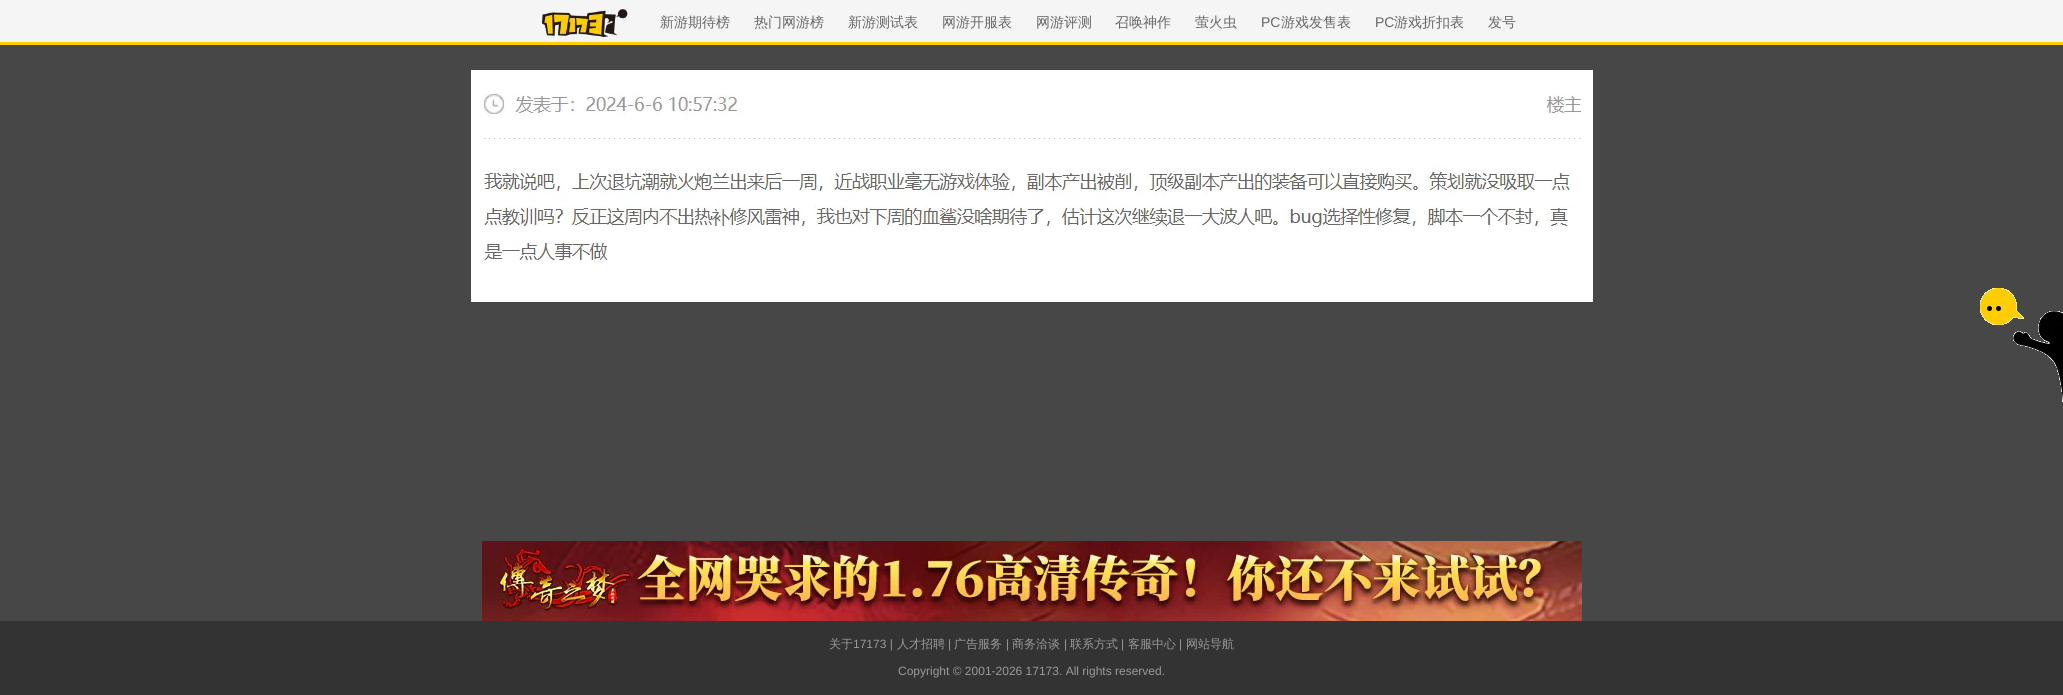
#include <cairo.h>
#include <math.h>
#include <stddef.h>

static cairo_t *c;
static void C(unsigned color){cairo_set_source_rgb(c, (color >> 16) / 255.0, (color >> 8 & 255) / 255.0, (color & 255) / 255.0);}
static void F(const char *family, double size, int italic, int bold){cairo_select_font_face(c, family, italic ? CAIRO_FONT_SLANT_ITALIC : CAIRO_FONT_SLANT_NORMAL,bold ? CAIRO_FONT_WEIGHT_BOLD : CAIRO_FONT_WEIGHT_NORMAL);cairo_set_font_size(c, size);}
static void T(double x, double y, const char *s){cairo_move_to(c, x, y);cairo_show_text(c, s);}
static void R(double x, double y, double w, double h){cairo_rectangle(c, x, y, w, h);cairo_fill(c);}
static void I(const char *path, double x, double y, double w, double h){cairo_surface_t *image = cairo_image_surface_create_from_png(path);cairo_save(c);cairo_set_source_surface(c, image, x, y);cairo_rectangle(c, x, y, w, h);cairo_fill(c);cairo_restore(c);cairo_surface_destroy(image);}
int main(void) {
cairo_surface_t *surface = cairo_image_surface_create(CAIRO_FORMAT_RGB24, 2063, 695);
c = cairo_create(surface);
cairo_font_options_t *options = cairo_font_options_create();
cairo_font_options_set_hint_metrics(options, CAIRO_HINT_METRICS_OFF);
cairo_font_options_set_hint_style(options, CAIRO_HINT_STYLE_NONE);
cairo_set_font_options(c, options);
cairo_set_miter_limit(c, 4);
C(0x474747);
cairo_paint(c);
C(0xf5f5f5);
R(0,0,2063,42);
C(0xffcd00);
R(0,42,2063,3);
I("1.png",542,9,86,28);
F("WenQuanYi Zen Hei Medium",14,0,0);
C(0x666666);
T(660,27,"新游期待榜");
T(754,27,"热门网游榜");
T(848,27,"新游测试表");
T(942,27,"网游开服表");
T(1036,27,"网游评测");
T(1115,27,"召唤神作");
T(1195,27,"萤火虫");
F("Liberation Sans",14,0,0);
T(1261,27,"PC");
F("WenQuanYi Zen Hei Medium",14,0,0);
T(1281,27,"游戏发售表");
F("Liberation Sans",14,0,0);
T(1375,27,"PC");
F("WenQuanYi Zen Hei Medium",14,0,0);
T(1394,27,"游戏折扣表");
T(1488,27,"发号");
I("2.png",471,70,1122,232);
I("3.png",482,541,1100,80);
I("4.png",1980,288,83,114);
C(0x333333);
R(0,621,2063,74);
F("WenQuanYi Zen Hei Medium",12,0,0);
C(0x999999);
T(829,648,"关于");
F("Liberation Sans",12,0,0);
T(853,648,"17173 |");
F("WenQuanYi Zen Hei Medium",12,0,0);
T(897,648,"人才招聘");
F("Liberation Sans",12,0,0);
T(948,648,"|");
F("WenQuanYi Zen Hei Medium",12,0,0);
T(954,648,"广告服务");
F("Liberation Sans",12,0,0);
T(1006,648,"|");
F("WenQuanYi Zen Hei Medium",12,0,0);
T(1012,648,"商务洽谈");
F("Liberation Sans",12,0,0);
T(1064,648,"|");
F("WenQuanYi Zen Hei Medium",12,0,0);
T(1070,648,"联系方式");
F("Liberation Sans",12,0,0);
T(1121,648,"|");
F("WenQuanYi Zen Hei Medium",12,0,0);
T(1128,648,"客服中心");
F("Liberation Sans",12,0,0);
T(1179,648,"|");
F("WenQuanYi Zen Hei Medium",12,0,0);
T(1186,648,"网站导航");
F("Liberation Sans",12,0,0);
T(898,675,"Copyright © 2001-2026 17173. All rights reserved.");
cairo_surface_write_to_png(surface, "o.png");
cairo_font_options_destroy(options);
cairo_destroy(c);
cairo_surface_destroy(surface);
return 0;
}
